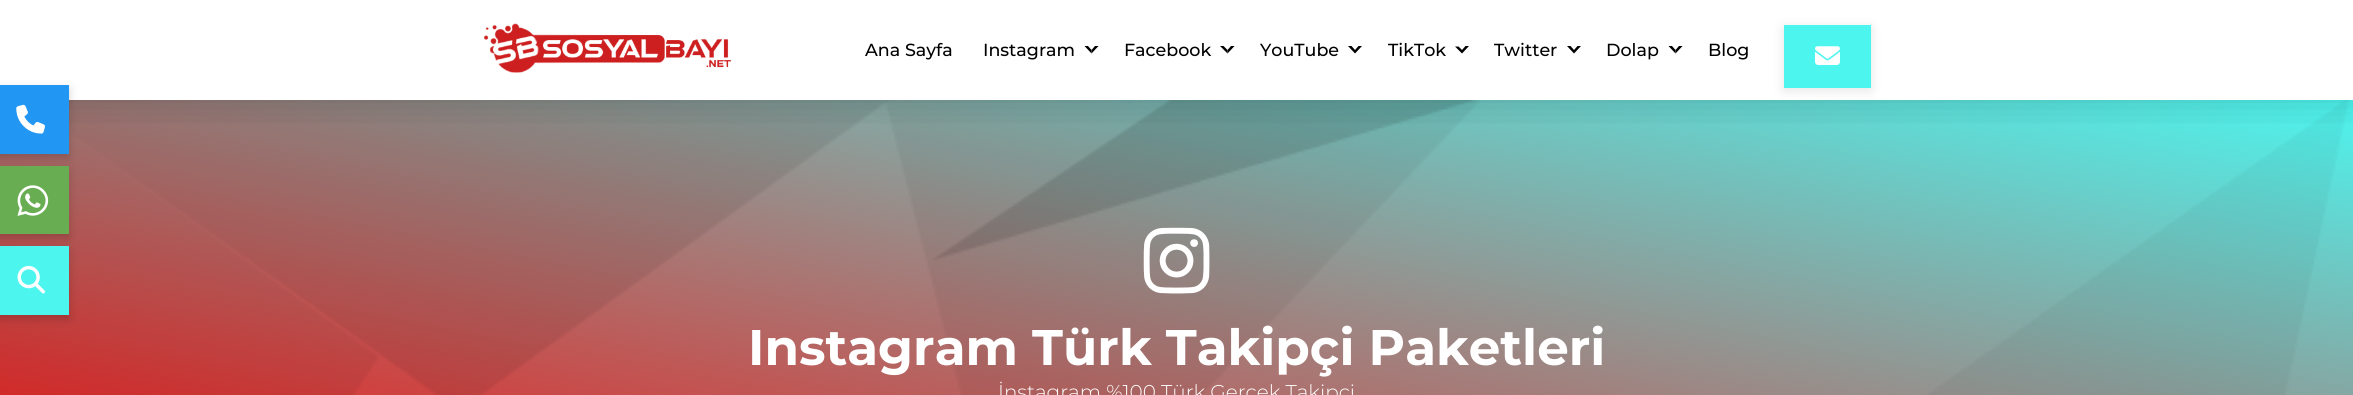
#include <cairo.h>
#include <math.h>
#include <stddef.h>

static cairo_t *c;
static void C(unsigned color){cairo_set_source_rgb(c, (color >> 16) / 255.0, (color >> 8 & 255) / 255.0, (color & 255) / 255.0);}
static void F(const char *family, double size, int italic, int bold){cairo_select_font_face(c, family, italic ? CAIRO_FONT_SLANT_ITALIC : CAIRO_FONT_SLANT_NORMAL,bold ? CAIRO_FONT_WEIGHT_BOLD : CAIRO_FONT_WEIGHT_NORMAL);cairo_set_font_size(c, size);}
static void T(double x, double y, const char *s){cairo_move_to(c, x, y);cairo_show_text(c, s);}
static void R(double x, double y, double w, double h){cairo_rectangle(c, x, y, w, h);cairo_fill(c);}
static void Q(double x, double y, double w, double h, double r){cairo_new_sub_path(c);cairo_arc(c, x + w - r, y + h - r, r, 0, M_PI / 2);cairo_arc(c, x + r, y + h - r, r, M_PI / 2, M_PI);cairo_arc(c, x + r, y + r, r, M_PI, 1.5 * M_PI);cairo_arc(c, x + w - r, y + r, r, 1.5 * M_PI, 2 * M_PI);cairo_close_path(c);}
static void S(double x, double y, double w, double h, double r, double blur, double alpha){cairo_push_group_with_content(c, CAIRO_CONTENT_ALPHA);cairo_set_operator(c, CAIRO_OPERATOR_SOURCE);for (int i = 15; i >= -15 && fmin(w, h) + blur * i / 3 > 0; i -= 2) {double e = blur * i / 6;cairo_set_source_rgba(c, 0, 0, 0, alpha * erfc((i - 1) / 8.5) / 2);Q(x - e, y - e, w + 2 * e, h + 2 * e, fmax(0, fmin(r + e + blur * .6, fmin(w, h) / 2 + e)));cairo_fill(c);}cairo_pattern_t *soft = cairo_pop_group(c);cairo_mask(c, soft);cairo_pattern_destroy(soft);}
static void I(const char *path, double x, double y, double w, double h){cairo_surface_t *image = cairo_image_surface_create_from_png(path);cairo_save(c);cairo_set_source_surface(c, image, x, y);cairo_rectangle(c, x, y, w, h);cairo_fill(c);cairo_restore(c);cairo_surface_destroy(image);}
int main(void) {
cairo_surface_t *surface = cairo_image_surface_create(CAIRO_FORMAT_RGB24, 2353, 395);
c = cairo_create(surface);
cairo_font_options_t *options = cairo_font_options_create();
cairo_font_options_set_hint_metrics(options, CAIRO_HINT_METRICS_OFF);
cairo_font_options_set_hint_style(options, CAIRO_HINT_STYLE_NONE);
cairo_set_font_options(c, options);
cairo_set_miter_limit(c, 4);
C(0xffffff);
cairo_paint(c);
I("6.png",0,100,2353,295);
cairo_save(c);
cairo_rectangle(c,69,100,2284,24);
cairo_clip(c);
C(0x000000);
S(0,0,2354,100,0,19,.2);
cairo_restore(c);
I("1.png",483,23,249,50);
F("Montserrat Medium",17.5,0,0);
C(0x000000);
T(865,56,"Ana Sayfa");
T(983,56,"Instagram");
cairo_new_path(c);
cairo_move_to(c,1098.5,46);
cairo_line_to(c,1091.5,53.5);
cairo_line_to(c,1091.5,50);
cairo_line_to(c,1095,46);
cairo_close_path(c);
cairo_fill(c);
cairo_new_path(c);
cairo_move_to(c,1091.5,53.5);
cairo_line_to(c,1084.5,46);
cairo_line_to(c,1088,46);
cairo_line_to(c,1091.5,50);
cairo_close_path(c);
cairo_fill(c);
T(1124,56,"Facebook");
cairo_new_path(c);
cairo_move_to(c,1234.5,46);
cairo_line_to(c,1227.5,53.5);
cairo_line_to(c,1227.5,50);
cairo_line_to(c,1231,46);
cairo_close_path(c);
cairo_fill(c);
cairo_new_path(c);
cairo_move_to(c,1227.5,53.5);
cairo_line_to(c,1220,46);
cairo_line_to(c,1223.5,46);
cairo_line_to(c,1227.5,50);
cairo_close_path(c);
cairo_fill(c);
T(1260,56,"YouTube");
cairo_new_path(c);
cairo_move_to(c,1362,46);
cairo_line_to(c,1355,53.5);
cairo_line_to(c,1355,50);
cairo_line_to(c,1358.5,46);
cairo_close_path(c);
cairo_move_to(c,1355,53.5);
cairo_line_to(c,1348,46);
cairo_line_to(c,1351.5,46);
cairo_line_to(c,1355,50);
cairo_close_path(c);
cairo_fill(c);
T(1388,56,"TikTok");
cairo_new_path(c);
cairo_move_to(c,1469,46);
cairo_line_to(c,1462,53.5);
cairo_line_to(c,1462,50);
cairo_line_to(c,1465.5,46);
cairo_close_path(c);
cairo_move_to(c,1462,53.5);
cairo_line_to(c,1455,46.5);
cairo_line_to(c,1458.5,46.5);
cairo_line_to(c,1462,50);
cairo_close_path(c);
cairo_fill(c);
T(1494,56,"Twitter");
cairo_new_path(c);
cairo_move_to(c,1581,46);
cairo_line_to(c,1574,53.5);
cairo_line_to(c,1574,50);
cairo_line_to(c,1577.5,46);
cairo_close_path(c);
cairo_move_to(c,1574,53.5);
cairo_line_to(c,1567,46);
cairo_line_to(c,1570.5,46);
cairo_line_to(c,1574,50);
cairo_close_path(c);
cairo_fill(c);
T(1606,56,"Dolap");
cairo_new_path(c);
cairo_move_to(c,1682.5,46);
cairo_line_to(c,1675.5,53.5);
cairo_line_to(c,1675.5,50);
cairo_line_to(c,1679,46);
cairo_close_path(c);
cairo_fill(c);
cairo_new_path(c);
cairo_move_to(c,1675.5,53.5);
cairo_line_to(c,1668.5,46);
cairo_line_to(c,1672,46);
cairo_line_to(c,1675.5,50);
cairo_close_path(c);
cairo_fill(c);
T(1708,56,"Blog");
C(0x000000);
S(1784,28,87,62,0,6,.11);
C(0x4df5ef);
R(1784,25,87,63);
I("2.png",1815,46,25,19);
C(0x000000);
S(-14,89,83,69,0,4.5,.18);
C(0x2196f3);
R(0,85,69,69);
I("3.png",16,104,29,30);
C(0x000000);
S(-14,170,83,68,0,4.5,.18);
C(0x69ad53);
R(0,166,69,68);
I("4.png",17,185,32,31);
C(0x000000);
S(-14,250,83,69,0,4.5,.18);
C(0x4df5ef);
R(0,246,69,69);
I("5.png",17,265,28,29);
I("7.png",1143,227,67,67);
F("Montserrat",50,0,1);
C(0xffffff);
T(748,365,"Instagram Türk Takipçi Paketleri");
F("Montserrat Light",20,0,0);
T(998,399,"İnstagram %100 Türk Gerçek Takipçi");
cairo_surface_write_to_png(surface, "o.png");
cairo_font_options_destroy(options);
cairo_destroy(c);
cairo_surface_destroy(surface);
return 0;
}
